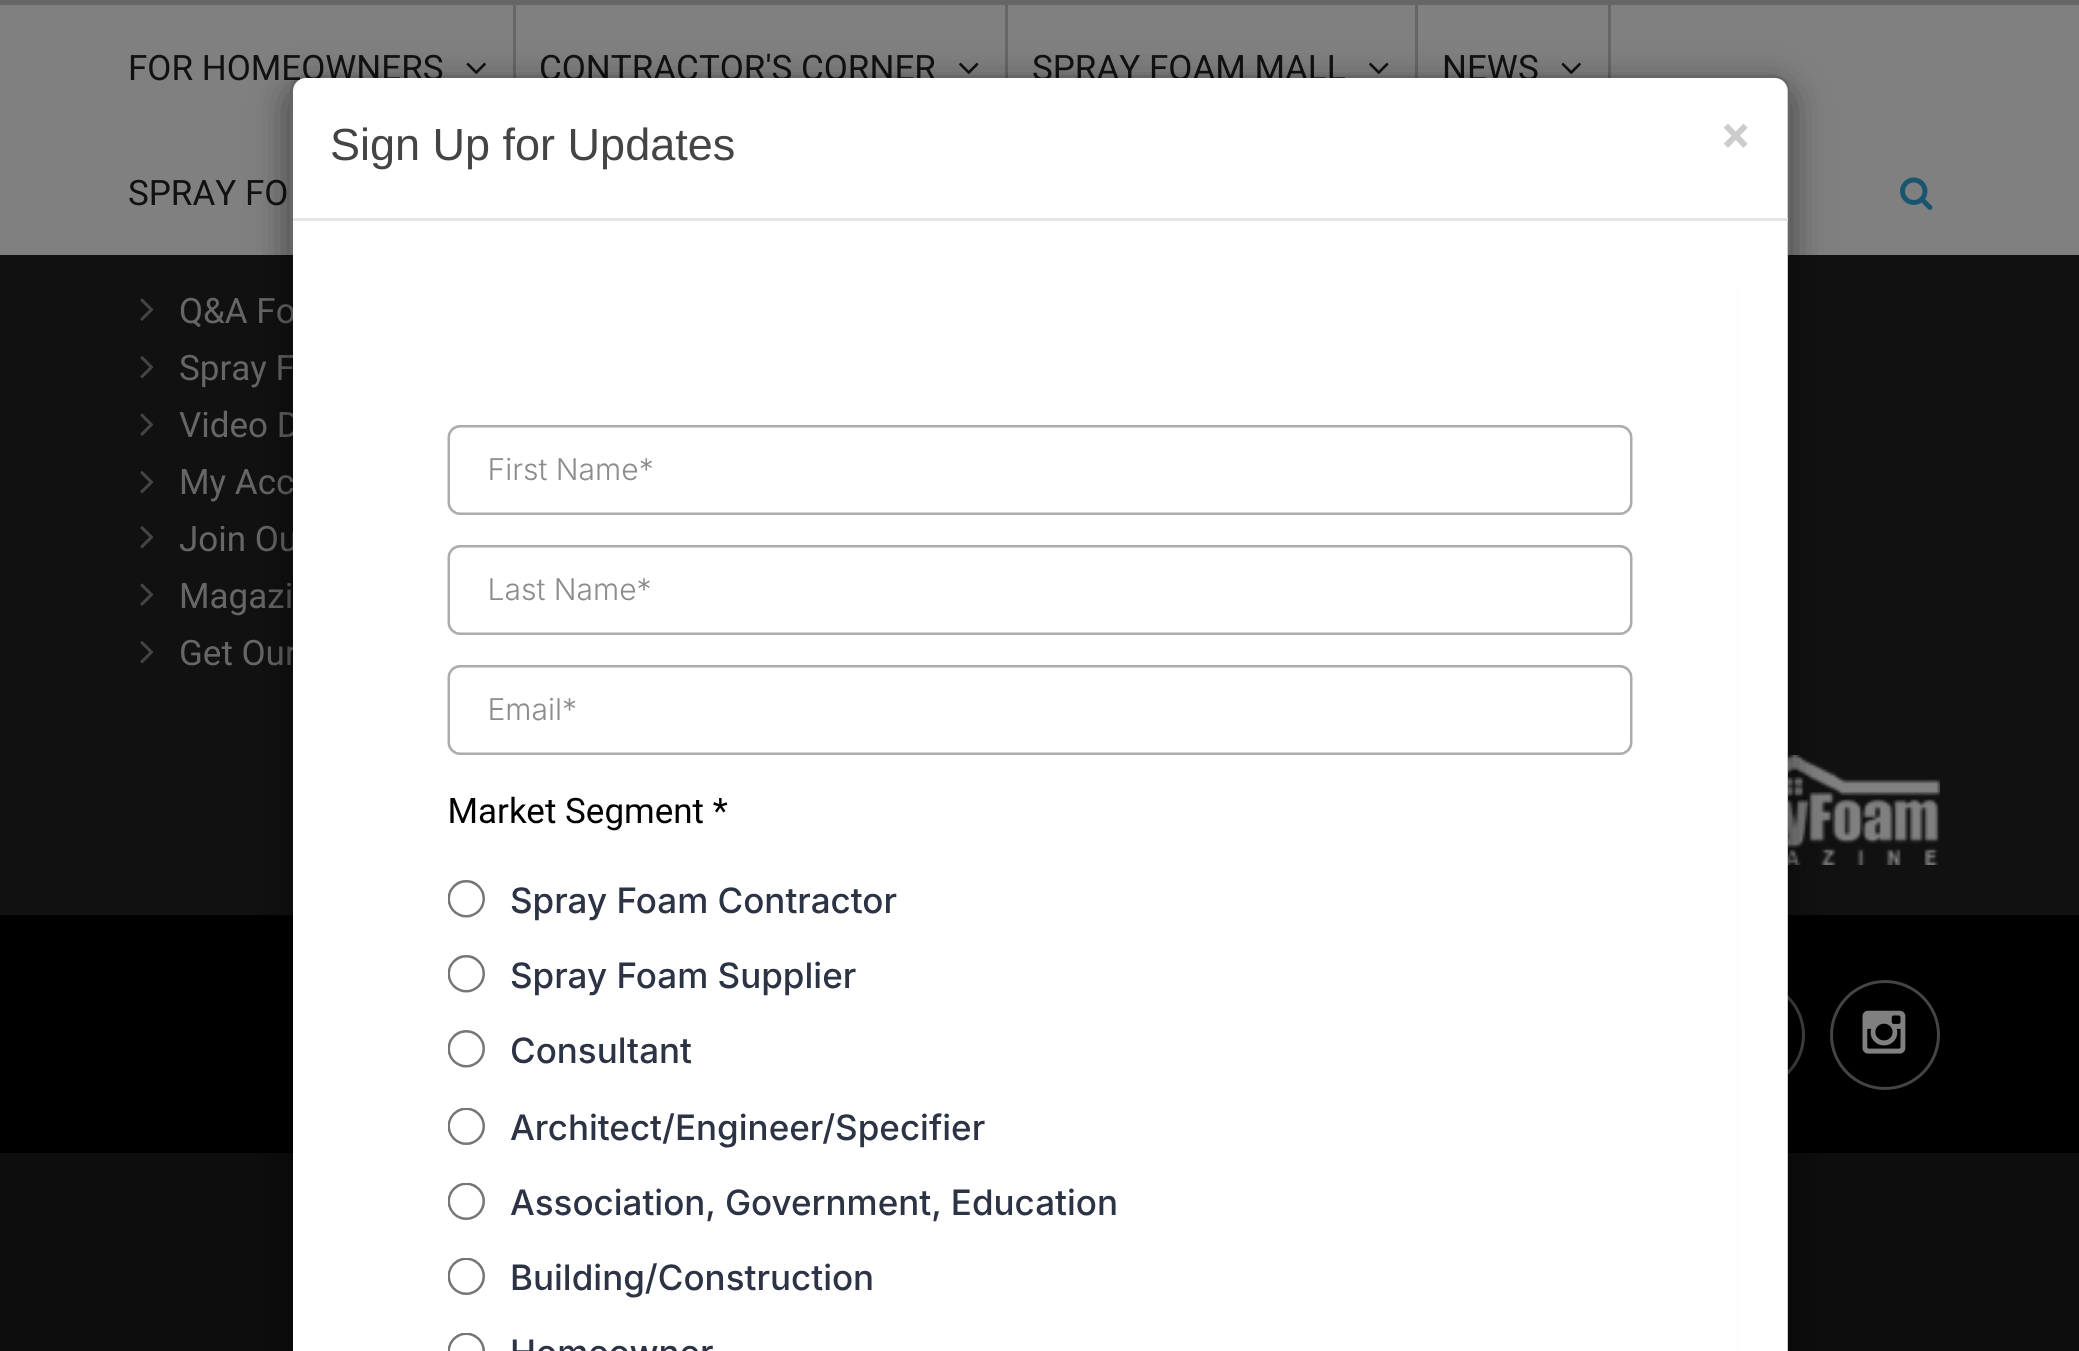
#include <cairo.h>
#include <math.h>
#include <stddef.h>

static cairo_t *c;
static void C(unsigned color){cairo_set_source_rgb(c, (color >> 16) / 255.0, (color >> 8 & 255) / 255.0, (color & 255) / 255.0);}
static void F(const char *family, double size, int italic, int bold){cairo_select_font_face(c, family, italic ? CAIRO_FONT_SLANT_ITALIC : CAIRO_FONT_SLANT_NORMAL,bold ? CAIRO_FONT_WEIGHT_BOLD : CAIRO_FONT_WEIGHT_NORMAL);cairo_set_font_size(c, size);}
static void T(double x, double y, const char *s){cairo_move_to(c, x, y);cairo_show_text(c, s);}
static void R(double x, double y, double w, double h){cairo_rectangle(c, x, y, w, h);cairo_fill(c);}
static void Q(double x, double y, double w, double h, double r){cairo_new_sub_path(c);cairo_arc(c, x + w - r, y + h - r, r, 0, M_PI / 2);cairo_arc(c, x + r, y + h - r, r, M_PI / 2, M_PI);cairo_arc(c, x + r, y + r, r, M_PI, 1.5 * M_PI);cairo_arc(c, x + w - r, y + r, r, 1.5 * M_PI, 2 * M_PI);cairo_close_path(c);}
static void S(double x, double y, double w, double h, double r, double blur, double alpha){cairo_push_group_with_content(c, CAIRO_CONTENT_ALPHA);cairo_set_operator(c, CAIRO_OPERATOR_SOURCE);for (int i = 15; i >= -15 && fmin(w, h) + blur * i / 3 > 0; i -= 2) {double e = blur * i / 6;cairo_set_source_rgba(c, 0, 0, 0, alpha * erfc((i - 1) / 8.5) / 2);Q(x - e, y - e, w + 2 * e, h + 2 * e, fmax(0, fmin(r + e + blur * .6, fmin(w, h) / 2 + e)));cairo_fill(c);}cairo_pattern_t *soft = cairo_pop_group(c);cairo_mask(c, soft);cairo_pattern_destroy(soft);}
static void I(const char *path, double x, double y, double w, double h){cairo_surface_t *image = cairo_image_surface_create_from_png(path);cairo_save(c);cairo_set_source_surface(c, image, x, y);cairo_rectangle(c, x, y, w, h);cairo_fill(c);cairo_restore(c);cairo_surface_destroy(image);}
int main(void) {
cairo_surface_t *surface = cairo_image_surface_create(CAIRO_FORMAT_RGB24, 2079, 1351);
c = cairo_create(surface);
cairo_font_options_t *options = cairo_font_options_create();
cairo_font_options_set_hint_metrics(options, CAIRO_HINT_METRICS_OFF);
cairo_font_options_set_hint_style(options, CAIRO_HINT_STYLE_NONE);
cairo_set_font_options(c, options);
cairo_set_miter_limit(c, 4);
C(0x111111);
cairo_paint(c);
C(0x808080);
R(0,5,2079,250);
C(0x666666);
R(0,0,2079,5);
R(513,5,3,73);
F("Roboto",35,0,0);
C(0x111111);
T(128,80,"FOR HOMEOWNERS");
I("1.png",466,62,20,13);
C(0x666666);
R(1005,5,3,73);
C(0x111111);
T(539,80,"CONTRACTOR'S CORNER");
I("2.png",959,62,20,13);
C(0x666666);
R(1415,5,3,73);
C(0x111111);
T(1032,80,"SPRAY FOAM MALL");
I("2.png",1369,62,20,13);
C(0x666666);
R(1608,5,3,73);
C(0x111111);
T(1442,80,"NEWS");
I("1.png",1561,62,20,13);
T(128,205,"SPRAY FO");
I("3.png",1900,177,33,33);
I("4.png",140,298,14,23);
C(0x666666);
T(179,323,"Q&A Fo");
I("5.png",140,356,14,23);
T(179,380,"Spray F");
I("4.png",140,413,14,23);
T(179,437,"Video D");
I("5.png",140,471,14,23);
T(179,494,"My Acc");
I("5.png",140,526,14,23);
T(179,551,"Join Ou");
I("4.png",140,583,14,23);
T(179,608,"Magazi");
I("5.png",140,641,14,23);
T(179,665,"Get Our");
I("6.png",1788,755,152,110);
C(0x000000);
R(0,915,2079,238);
cairo_arc(c,1750,1035,53.5,0,2 * M_PI);
C(0x444444);
cairo_set_line_width(c,3);
cairo_stroke(c);
cairo_arc(c,1885,1035,53.5,0,2 * M_PI);
cairo_stroke(c);
I("7.png",1862,1010,44,44);
C(0x0d0d0d);
R(0,1153,2079,198);
cairo_save(c);
cairo_set_fill_rule(c,CAIRO_FILL_RULE_EVEN_ODD);
cairo_new_path(c);
cairo_move_to(c,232,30);
cairo_line_to(c,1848,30);
cairo_line_to(c,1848,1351);
cairo_line_to(c,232,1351);
cairo_close_path(c);
cairo_move_to(c,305,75);
cairo_line_to(c,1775,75);
cairo_curve_to(c,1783.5,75,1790,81.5,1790,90);
cairo_line_to(c,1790,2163);
cairo_curve_to(c,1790,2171.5,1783.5,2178,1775,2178);
cairo_line_to(c,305,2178);
cairo_curve_to(c,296.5,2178,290,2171.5,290,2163);
cairo_line_to(c,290,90);
cairo_curve_to(c,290,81.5,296.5,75,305,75);
cairo_close_path(c);
cairo_clip(c);
C(0x000000);
S(290,88,1500,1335,15,19,.5);
cairo_restore(c);
C(0xffffff);
cairo_new_path(c);
cairo_move_to(c,306,78);
cairo_line_to(c,1775,78);
cairo_curve_to(c,1782,78,1788,84,1788,91);
cairo_line_to(c,1788,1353);
cairo_line_to(c,293,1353);
cairo_line_to(c,293,91);
cairo_curve_to(c,293,84,299,78,306,78);
cairo_close_path(c);
cairo_fill(c);
Q(291.5,76.5,1497,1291,13.5);
cairo_set_source_rgba(c,0,0,0,0.2);
cairo_stroke(c);
C(0xe5e5e5);
R(293,218,1495,3);
F("Liberation Sans",45,0,0);
C(0x444444);
T(330,160,"Sign Up for Updates");
F("Roboto",52,0,1);
C(0xcccccc);
T(1722,153,"×");
I("8.png",447,286,1291,1065);
cairo_surface_write_to_png(surface, "o.png");
cairo_font_options_destroy(options);
cairo_destroy(c);
cairo_surface_destroy(surface);
return 0;
}
